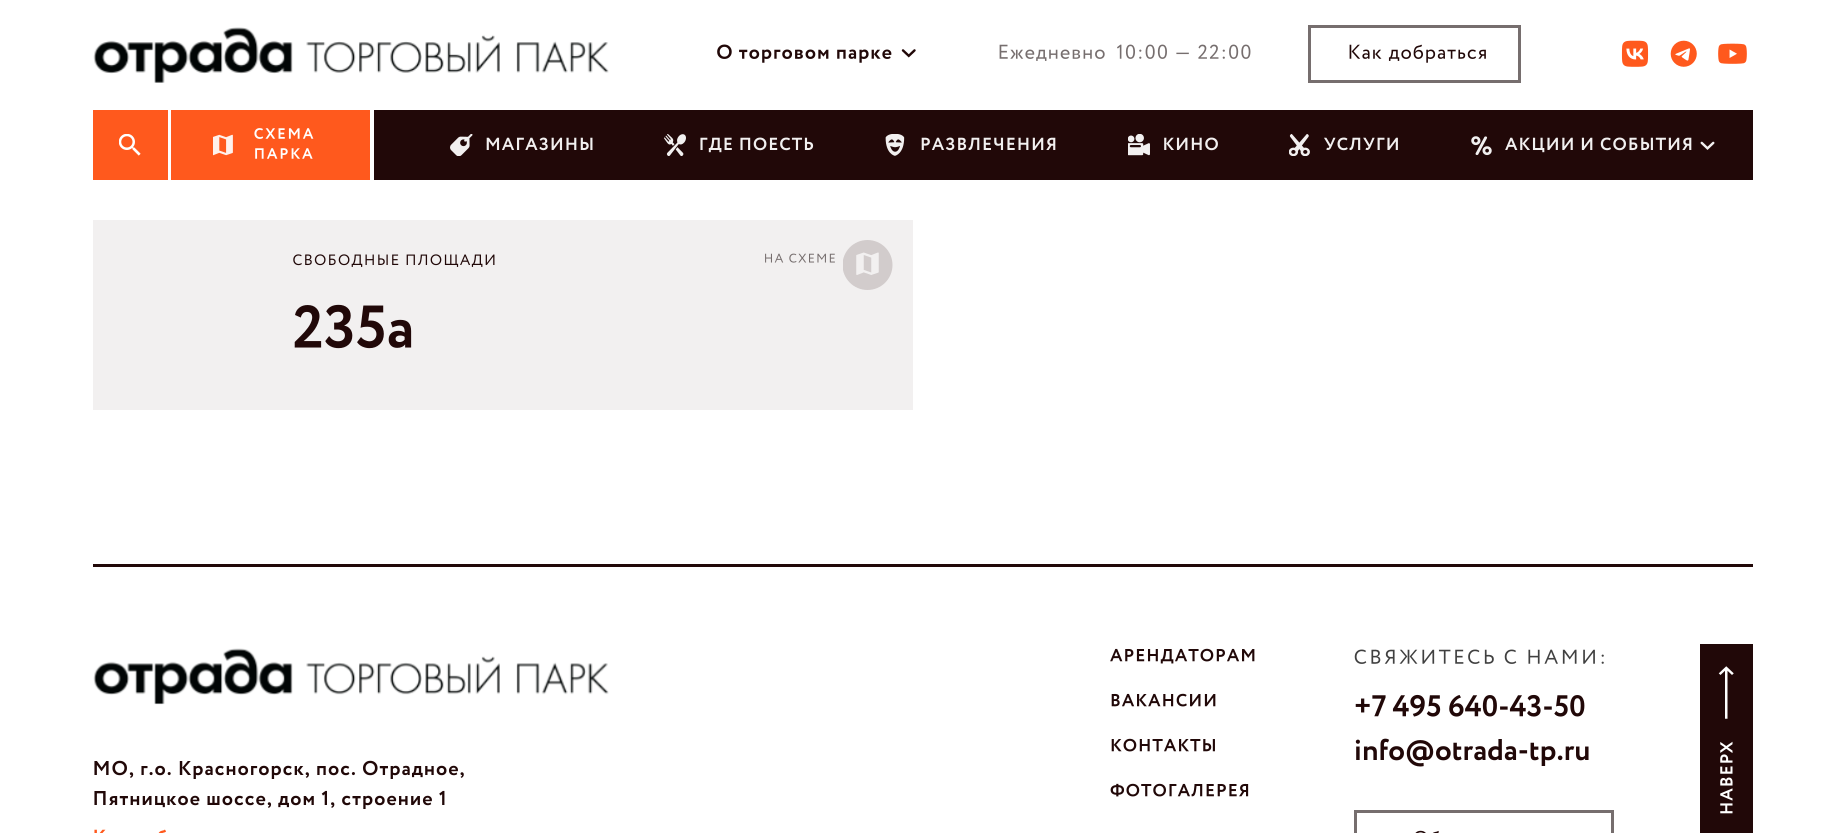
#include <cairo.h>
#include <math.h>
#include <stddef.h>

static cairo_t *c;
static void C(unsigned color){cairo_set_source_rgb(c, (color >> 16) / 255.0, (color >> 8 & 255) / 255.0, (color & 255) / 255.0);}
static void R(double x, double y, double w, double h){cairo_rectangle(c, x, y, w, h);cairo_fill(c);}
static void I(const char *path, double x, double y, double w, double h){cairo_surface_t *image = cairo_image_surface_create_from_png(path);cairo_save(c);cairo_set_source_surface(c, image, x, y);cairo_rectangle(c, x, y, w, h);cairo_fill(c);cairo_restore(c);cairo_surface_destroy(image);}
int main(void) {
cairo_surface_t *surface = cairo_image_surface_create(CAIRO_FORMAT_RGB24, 1843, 833);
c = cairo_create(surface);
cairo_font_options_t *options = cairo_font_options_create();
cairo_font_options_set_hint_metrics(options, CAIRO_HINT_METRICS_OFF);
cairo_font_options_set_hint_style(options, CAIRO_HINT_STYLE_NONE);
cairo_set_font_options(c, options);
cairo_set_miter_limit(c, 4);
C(0xffffff);
cairo_paint(c);
I("1.png",93,27,516,56);
I("2.png",717,44,15,15);
I("3.png",739,49,153,14);
I("4.png",901,49,15,9);
I("5.png",999,44,106,17);
I("6.png",1117,44,72,15);
I("7.png",1198,44,53,15);
cairo_rectangle(c,1309.5,26.5,210,55);
C(0x766e6e);
cairo_set_line_width(c,3);
cairo_stroke(c);
I("8.png",1349,44,33,15);
I("9.png",1388,44,98,19);
I("10.png",1621,40,28,27);
I("11.png",1670,40,27,27);
I("12.png",1718,43,29,21);
C(0xff591d);
R(93,110,75,70);
I("13.png",119,134,22,22);
R(171,110,199,70);
I("14.png",213,134,20,22);
I("15.png",254,128,60,11);
I("16.png",255,148,58,11);
C(0x210808);
R(374,110,1379,70);
I("17.png",450,134,23,22);
I("18.png",486,137,107,14);
I("19.png",664,134,22,22);
I("20.png",700,137,32,16);
I("21.png",740,137,74,14);
I("22.png",885,134,20,22);
I("23.png",921,137,135,14);
I("24.png",1128,134,22,22);
I("25.png",1164,137,54,14);
I("26.png",1289,134,21,22);
I("27.png",1324,137,74,14);
I("28.png",1471,136,21,20);
I("29.png",1505,137,88,16);
I("30.png",1600,137,92,14);
I("31.png",1700,141,15,9);
C(0xf2f0f0);
R(93,220,820,190);
I("32.png",293,254,202,13);
I("33.png",294,304,118,45);
I("34.png",765,253,70,10);
I("35.png",843,240,50,50);
C(0x210808);
R(93,564,1660,3);
I("36.png",93,648,516,57);
I("37.png",94,760,370,19);
I("38.png",94,790,351,19);
I("39.png",94,829,12,4);
I("40.png",158,829,8,4);
I("41.png",1110,648,145,16);
I("42.png",1111,693,105,14);
I("43.png",1111,738,104,14);
I("44.png",1110,783,139,14);
I("45.png",1354,649,140,15);
I("46.png",1504,649,100,15);
I("47.png",1355,695,31,22);
I("48.png",1392,694,193,23);
I("49.png",1355,738,234,29);
cairo_rectangle(c,1355.5,811.5,257,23);
C(0x766e6e);
cairo_stroke(c);
I("50.png",1415,830,24,3);
C(0x210808);
R(1700,644,53,189);
I("51.png",1718,666,16,148);
cairo_surface_write_to_png(surface, "o.png");
cairo_font_options_destroy(options);
cairo_destroy(c);
cairo_surface_destroy(surface);
return 0;
}
